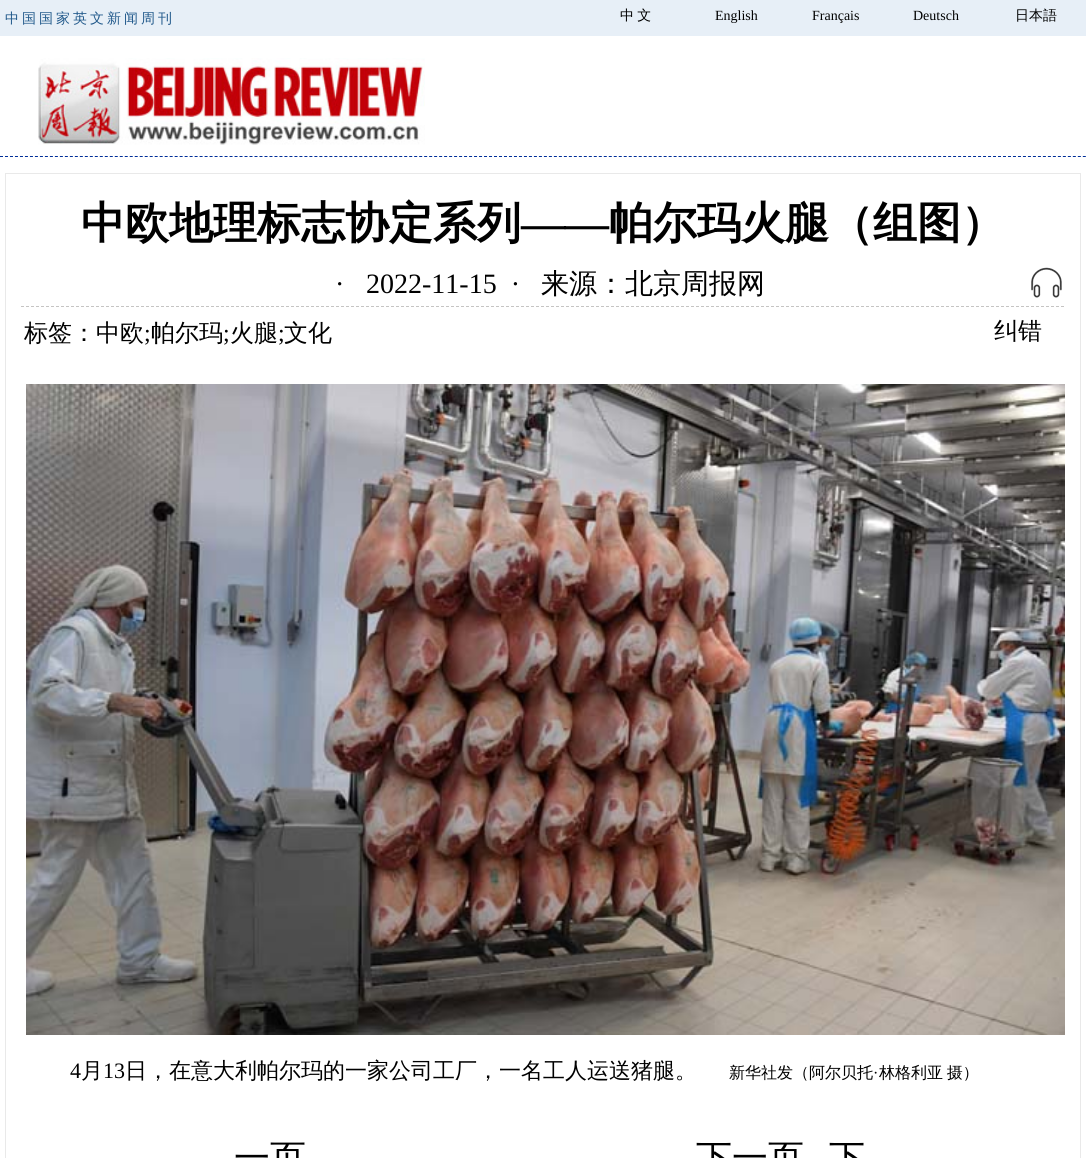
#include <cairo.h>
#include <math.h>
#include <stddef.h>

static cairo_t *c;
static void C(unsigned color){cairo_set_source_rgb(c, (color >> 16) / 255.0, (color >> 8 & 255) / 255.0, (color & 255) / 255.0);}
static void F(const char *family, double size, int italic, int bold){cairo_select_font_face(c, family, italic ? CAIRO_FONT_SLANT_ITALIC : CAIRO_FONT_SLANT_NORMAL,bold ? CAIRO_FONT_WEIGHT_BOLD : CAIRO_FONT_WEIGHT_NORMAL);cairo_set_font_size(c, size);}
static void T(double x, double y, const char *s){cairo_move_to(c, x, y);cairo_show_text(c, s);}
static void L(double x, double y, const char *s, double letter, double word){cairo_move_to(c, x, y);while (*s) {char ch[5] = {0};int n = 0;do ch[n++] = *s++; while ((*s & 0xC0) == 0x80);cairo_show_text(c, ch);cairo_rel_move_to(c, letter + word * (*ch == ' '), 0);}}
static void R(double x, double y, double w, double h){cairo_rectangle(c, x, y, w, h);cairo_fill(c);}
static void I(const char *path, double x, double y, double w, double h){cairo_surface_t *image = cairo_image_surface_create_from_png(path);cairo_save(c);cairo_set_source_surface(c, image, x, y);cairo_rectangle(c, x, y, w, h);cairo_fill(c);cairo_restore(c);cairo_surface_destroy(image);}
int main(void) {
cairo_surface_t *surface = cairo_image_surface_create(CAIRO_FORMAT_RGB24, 1086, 1158);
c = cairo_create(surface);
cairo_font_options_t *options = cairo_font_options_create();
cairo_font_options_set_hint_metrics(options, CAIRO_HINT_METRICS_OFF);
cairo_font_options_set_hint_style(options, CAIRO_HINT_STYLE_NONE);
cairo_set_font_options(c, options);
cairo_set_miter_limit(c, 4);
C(0xffffff);
cairo_paint(c);
C(0xe7eff7);
R(0,0,1086,36);
F("WenQuanYi Zen Hei Medium",14,0,0);
C(0x21598b);
L(5,23,"中国国家英文新闻周刊",3,0);
C(0x000000);
L(620,20,"中 文",0,-1);
F("Liberation Serif",14,0,0);
T(715,20,"English");
T(812,20,"Français");
T(913,20,"Deutsch");
F("WenQuanYi Zen Hei Medium",14,0,0);
T(1015,20,"日本語");
cairo_new_path(c);
cairo_move_to(c,0,156.5);
cairo_line_to(c,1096,156.5);
C(0x002e98);
cairo_set_line_width(c,1);
cairo_set_dash(c,(double[]){3,1.99},2,0);
cairo_stroke(c);
I("1.png",38,58,387,87);
cairo_rectangle(c,5.5,173.5,1075,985);
C(0xe9e9e9);
cairo_set_dash(c,NULL,0,0);
cairo_stroke(c);
F("WenQuanYi Zen Hei",44,0,1);
C(0x000000);
T(81,238,"中欧地理标志协定系列");
F("Liberation Serif",44,0,1);
T(521,238,"——");
F("WenQuanYi Zen Hei",44,0,1);
T(609,238,"帕尔玛火腿（组图）");
I("2.png",1031,267,31,31);
cairo_new_path(c);
cairo_move_to(c,21,306.5);
cairo_line_to(c,1065,306.5);
C(0xc5c4c3);
cairo_set_dash(c,(double[]){3,2},2,0);
cairo_stroke(c);
F("Liberation Serif",28,0,0);
C(0x000000);
T(335,293,"·");
T(366,293,"2022-11-15  ·");
F("WenQuanYi Zen Hei Medium",28,0,0);
T(541,293,"来源：北京周报网");
F("WenQuanYi Zen Hei Medium",24,0,0);
T(24,341,"标签：中欧");
F("Liberation Serif",24,0,0);
T(144,341,";");
F("WenQuanYi Zen Hei Medium",24,0,0);
T(151,341,"帕尔玛");
F("Liberation Serif",24,0,0);
T(223,341,";");
F("WenQuanYi Zen Hei Medium",24,0,0);
T(230,341,"火腿");
F("Liberation Serif",24,0,0);
T(278,341,";");
F("WenQuanYi Zen Hei Medium",24,0,0);
T(284,341,"文化");
T(994,339,"纠错");
I("3.png",26,384,1039,651);
F("Liberation Serif",22,0,0);
T(70,1078,"4");
F("WenQuanYi Zen Hei Medium",22,0,0);
T(81,1078,"月");
F("Liberation Serif",22,0,0);
T(103,1078,"13");
F("WenQuanYi Zen Hei Medium",22,0,0);
T(125,1078,"日，在意大利帕尔玛的一家公司工厂，一名工人运送猪腿。");
F("WenQuanYi Zen Hei Medium",16,0,0);
T(729,1078,"新华社发（阿尔贝托");
F("Liberation Serif",16,0,0);
T(873,1078,"·");
F("WenQuanYi Zen Hei Medium",16,0,0);
L(879,1078,"林格利亚 摄）",0,-1);
F("WenQuanYi Zen Hei Medium",36,0,0);
T(234,1170,"一页");
T(696,1170,"下一页");
T(829,1170,"下");
cairo_surface_write_to_png(surface, "o.png");
cairo_font_options_destroy(options);
cairo_destroy(c);
cairo_surface_destroy(surface);
return 0;
}
